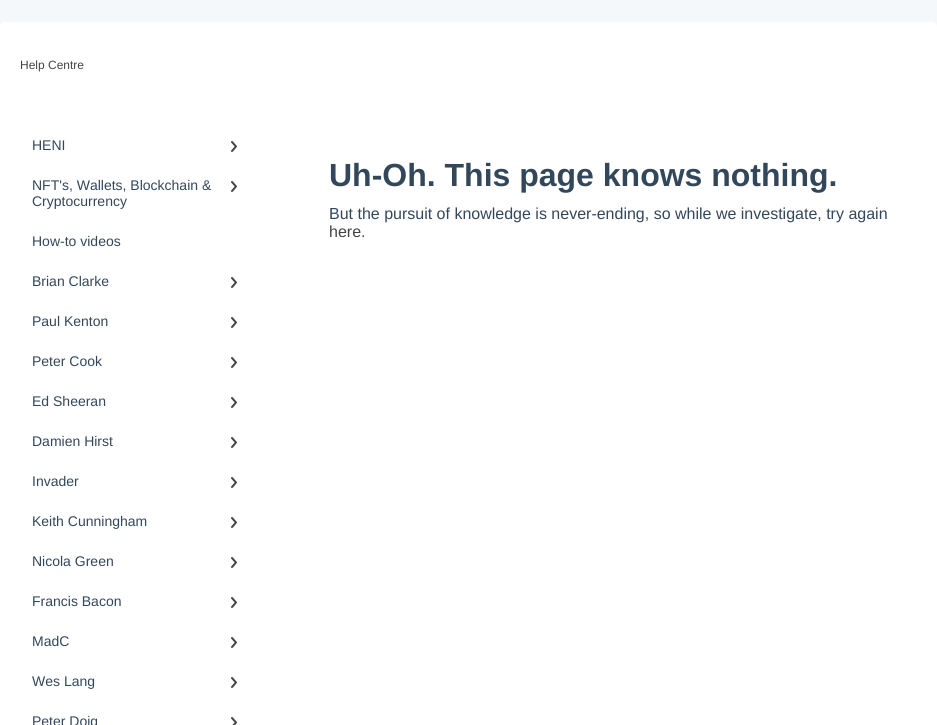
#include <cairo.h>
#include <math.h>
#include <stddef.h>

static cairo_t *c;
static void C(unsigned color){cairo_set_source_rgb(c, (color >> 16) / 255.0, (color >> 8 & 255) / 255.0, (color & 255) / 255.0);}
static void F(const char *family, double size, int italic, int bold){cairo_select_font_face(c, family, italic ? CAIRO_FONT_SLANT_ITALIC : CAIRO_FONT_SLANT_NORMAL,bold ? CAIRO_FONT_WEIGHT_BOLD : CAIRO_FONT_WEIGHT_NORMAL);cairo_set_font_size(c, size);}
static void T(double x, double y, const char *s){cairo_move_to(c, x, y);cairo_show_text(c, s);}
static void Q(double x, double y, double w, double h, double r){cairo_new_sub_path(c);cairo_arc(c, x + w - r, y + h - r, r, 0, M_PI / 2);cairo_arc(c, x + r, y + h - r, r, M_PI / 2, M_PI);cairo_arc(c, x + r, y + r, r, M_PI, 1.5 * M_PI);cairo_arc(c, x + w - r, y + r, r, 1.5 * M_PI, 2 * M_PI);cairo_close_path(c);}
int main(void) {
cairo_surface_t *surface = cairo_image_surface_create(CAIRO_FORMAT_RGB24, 937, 725);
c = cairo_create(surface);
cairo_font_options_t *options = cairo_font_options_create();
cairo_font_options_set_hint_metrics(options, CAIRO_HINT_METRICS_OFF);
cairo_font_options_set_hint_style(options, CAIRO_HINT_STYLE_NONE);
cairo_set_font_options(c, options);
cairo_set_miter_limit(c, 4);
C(0xf5f8fa);
cairo_paint(c);
C(0xffffff);
Q(0,22,937,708,5);
cairo_fill(c);
F("Liberation Sans",12,0,0);
C(0x444444);
T(20,69,"Help Centre");
F("Liberation Sans",14,0,0);
C(0x33475b);
T(32,150,"HENI");
cairo_new_path(c);
cairo_move_to(c,232,142);
cairo_line_to(c,236,146.5);
cairo_line_to(c,232,151);
C(0x444444);
cairo_set_line_cap(c,CAIRO_LINE_CAP_ROUND);
cairo_set_line_join(c,CAIRO_LINE_JOIN_ROUND);
cairo_stroke(c);
C(0x33475b);
T(32,190,"NFT's, Wallets, Blockchain &");
T(32,206,"Cryptocurrency");
cairo_new_path(c);
cairo_move_to(c,232,182);
cairo_line_to(c,236,186.5);
cairo_line_to(c,232,191);
C(0x444444);
cairo_stroke(c);
C(0x33475b);
T(32,246,"How-to videos");
T(32,286,"Brian Clarke");
cairo_new_path(c);
cairo_move_to(c,232,278);
cairo_line_to(c,236,282.5);
cairo_line_to(c,232,287);
C(0x444444);
cairo_stroke(c);
C(0x33475b);
T(32,326,"Paul Kenton");
cairo_new_path(c);
cairo_move_to(c,232,318);
cairo_line_to(c,236,322.5);
cairo_line_to(c,232,327);
C(0x444444);
cairo_stroke(c);
C(0x33475b);
T(32,366,"Peter Cook");
cairo_new_path(c);
cairo_move_to(c,232,358);
cairo_line_to(c,236,362.5);
cairo_line_to(c,232,367);
C(0x444444);
cairo_stroke(c);
C(0x33475b);
T(32,406,"Ed Sheeran");
cairo_new_path(c);
cairo_move_to(c,232,398);
cairo_line_to(c,236,402.5);
cairo_line_to(c,232,407);
C(0x444444);
cairo_stroke(c);
C(0x33475b);
T(32,446,"Damien Hirst");
cairo_new_path(c);
cairo_move_to(c,232,438);
cairo_line_to(c,236,442.5);
cairo_line_to(c,232,447);
C(0x444444);
cairo_stroke(c);
C(0x33475b);
T(32,486,"Invader");
cairo_new_path(c);
cairo_move_to(c,232,478);
cairo_line_to(c,236,482.5);
cairo_line_to(c,232,487);
C(0x444444);
cairo_stroke(c);
C(0x33475b);
T(32,526,"Keith Cunningham");
cairo_new_path(c);
cairo_move_to(c,232,518);
cairo_line_to(c,236,522.5);
cairo_line_to(c,232,527);
C(0x444444);
cairo_stroke(c);
C(0x33475b);
T(32,566,"Nicola Green");
cairo_new_path(c);
cairo_move_to(c,232,558);
cairo_line_to(c,236,562.5);
cairo_line_to(c,232,567);
C(0x444444);
cairo_stroke(c);
C(0x33475b);
T(32,606,"Francis Bacon");
cairo_new_path(c);
cairo_move_to(c,232,598);
cairo_line_to(c,236,602.5);
cairo_line_to(c,232,607);
C(0x444444);
cairo_stroke(c);
C(0x33475b);
T(32,646,"MadC");
cairo_new_path(c);
cairo_move_to(c,232,638);
cairo_line_to(c,236,642.5);
cairo_line_to(c,232,647);
C(0x444444);
cairo_stroke(c);
C(0x33475b);
T(32,686,"Wes Lang");
cairo_new_path(c);
cairo_move_to(c,232,678);
cairo_line_to(c,236,682.5);
cairo_line_to(c,232,687);
C(0x444444);
cairo_stroke(c);
C(0x33475b);
T(32,726,"Peter Doig");
cairo_new_path(c);
cairo_move_to(c,232,718);
cairo_line_to(c,236,722.5);
cairo_line_to(c,232,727);
C(0x444444);
cairo_stroke(c);
F("Liberation Sans",32,0,1);
C(0x33475b);
T(329,186,"Uh-Oh. This page knows nothing.");
F("Liberation Sans",16,0,0);
T(329,219,"But the pursuit of knowledge is never-ending, so while we investigate, try again");
C(0x444444);
T(329,237,"here.");
cairo_surface_write_to_png(surface, "o.png");
cairo_font_options_destroy(options);
cairo_destroy(c);
cairo_surface_destroy(surface);
return 0;
}
